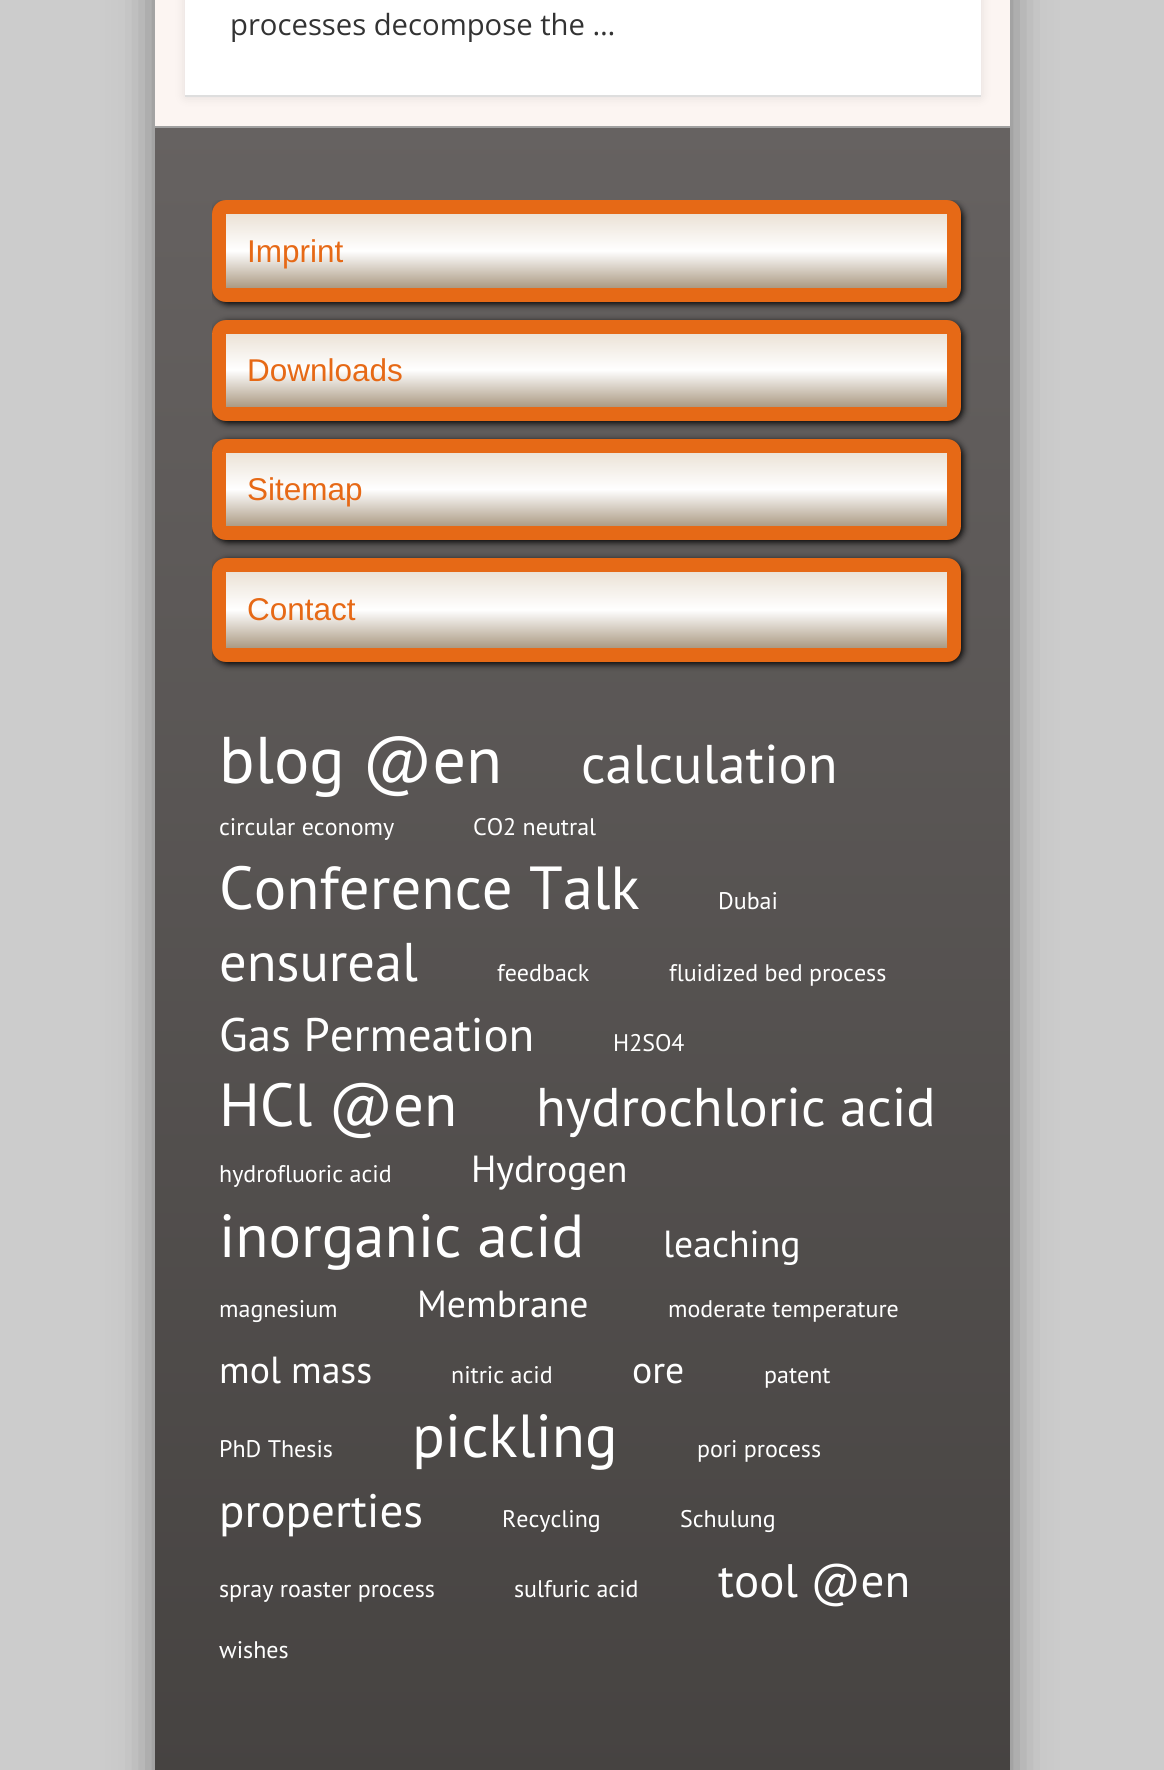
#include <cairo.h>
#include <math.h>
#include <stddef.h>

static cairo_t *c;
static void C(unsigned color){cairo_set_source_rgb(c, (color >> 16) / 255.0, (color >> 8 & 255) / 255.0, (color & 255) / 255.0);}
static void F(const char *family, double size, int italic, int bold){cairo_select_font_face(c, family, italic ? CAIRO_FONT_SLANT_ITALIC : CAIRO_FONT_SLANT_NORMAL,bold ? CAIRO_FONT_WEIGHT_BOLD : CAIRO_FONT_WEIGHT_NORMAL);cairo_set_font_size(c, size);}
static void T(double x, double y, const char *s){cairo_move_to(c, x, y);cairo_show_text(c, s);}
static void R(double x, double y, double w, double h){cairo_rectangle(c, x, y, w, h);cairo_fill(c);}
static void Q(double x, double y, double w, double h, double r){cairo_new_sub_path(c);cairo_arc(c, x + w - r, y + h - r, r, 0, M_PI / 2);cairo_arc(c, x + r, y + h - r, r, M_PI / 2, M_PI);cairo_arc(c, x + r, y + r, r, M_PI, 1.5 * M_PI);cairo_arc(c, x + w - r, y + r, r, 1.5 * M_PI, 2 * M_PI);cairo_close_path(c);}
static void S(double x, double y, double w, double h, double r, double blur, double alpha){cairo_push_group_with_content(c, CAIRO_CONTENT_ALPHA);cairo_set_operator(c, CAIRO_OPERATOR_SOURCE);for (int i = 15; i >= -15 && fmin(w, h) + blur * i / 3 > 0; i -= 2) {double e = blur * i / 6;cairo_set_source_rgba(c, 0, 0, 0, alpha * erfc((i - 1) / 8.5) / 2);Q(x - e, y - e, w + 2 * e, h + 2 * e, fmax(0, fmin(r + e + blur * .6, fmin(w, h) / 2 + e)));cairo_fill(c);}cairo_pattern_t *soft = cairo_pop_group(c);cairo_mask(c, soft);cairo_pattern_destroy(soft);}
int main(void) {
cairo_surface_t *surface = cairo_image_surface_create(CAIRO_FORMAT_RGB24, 1164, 1770);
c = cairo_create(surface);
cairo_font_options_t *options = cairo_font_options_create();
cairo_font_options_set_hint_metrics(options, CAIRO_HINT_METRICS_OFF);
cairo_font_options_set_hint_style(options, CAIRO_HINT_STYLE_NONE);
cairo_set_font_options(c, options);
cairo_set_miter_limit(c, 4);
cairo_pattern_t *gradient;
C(0xcccccc);
cairo_paint(c);
C(0x000000);
S(155,-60,855,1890,0,20,.4);
C(0xfcf5f2);
R(155,0,855,126);
C(0x000000);
S(185,-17,796,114,0,5.5,.1);
C(0xffffff);
R(185,0,796,95);
C(0xdedede);
R(185,95,796,2);
F("Open Sans",29.25,0,0);
C(0x333333);
T(230,35,"processes decompose the …");
gradient = cairo_pattern_create_linear(583,128,583,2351);
cairo_pattern_add_color_stop_rgba(gradient,0,0.4,0.384,0.38,1);
cairo_pattern_add_color_stop_rgba(gradient,1,0.231,0.22,0.212,1);
cairo_set_source(c,gradient);
cairo_pattern_destroy(gradient);
R(155,128,855,1642);
C(0xa0a0a0);
R(155,126,855,2);
cairo_save(c);
cairo_rectangle(c,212,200,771,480);
cairo_clip(c);
C(0x000000);
S(214,203,749,101,14,3.5,1);
cairo_restore(c);
gradient = cairo_pattern_create_linear(225,214,225,288);
cairo_pattern_add_color_stop_rgba(gradient,0,0.922,0.886,0.839,1);
cairo_pattern_add_color_stop_rgba(gradient,.5,1,1,1,1);
cairo_pattern_add_color_stop_rgba(gradient,1,0.671,0.604,0.514,1);
cairo_set_source(c,gradient);
cairo_pattern_destroy(gradient);
R(226,214,721,74);
Q(219,207,735,88,7);
C(0xe66916);
cairo_set_line_width(c,14);
cairo_stroke(c);
F("Liberation Sans",31.5,0,0);
T(247,262,"Imprint");
cairo_save(c);
cairo_rectangle(c,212,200,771,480);
cairo_clip(c);
C(0x000000);
S(214,322,749,101,14,3.5,1);
cairo_restore(c);
gradient = cairo_pattern_create_linear(225,333,225,407);
cairo_pattern_add_color_stop_rgba(gradient,0,0.922,0.886,0.839,1);
cairo_pattern_add_color_stop_rgba(gradient,.5,1,1,1,1);
cairo_pattern_add_color_stop_rgba(gradient,1,0.671,0.604,0.514,1);
cairo_set_source(c,gradient);
cairo_pattern_destroy(gradient);
R(212,333,749,74);
Q(219,327,735,87,7);
C(0xe66916);
cairo_stroke(c);
T(247,381,"Downloads");
cairo_save(c);
cairo_rectangle(c,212,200,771,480);
cairo_clip(c);
C(0x000000);
S(214,441,749,101,14,3.5,1);
cairo_restore(c);
gradient = cairo_pattern_create_linear(225,452,225,527);
cairo_pattern_add_color_stop_rgba(gradient,0,0.922,0.886,0.839,1);
cairo_pattern_add_color_stop_rgba(gradient,.5,1,1,1,1);
cairo_pattern_add_color_stop_rgba(gradient,1,0.671,0.604,0.514,1);
cairo_set_source(c,gradient);
cairo_pattern_destroy(gradient);
R(212,452,749,75);
Q(219,446,735,87,7);
C(0xe66916);
cairo_stroke(c);
T(247,500,"Sitemap");
cairo_save(c);
cairo_rectangle(c,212,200,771,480);
cairo_clip(c);
C(0x000000);
S(214,560,749,104,14,3.5,1);
cairo_restore(c);
gradient = cairo_pattern_create_linear(225,572,225,648);
cairo_pattern_add_color_stop_rgba(gradient,0,0.922,0.886,0.839,1);
cairo_pattern_add_color_stop_rgba(gradient,.5,1,1,1,1);
cairo_pattern_add_color_stop_rgba(gradient,1,0.671,0.604,0.514,1);
cairo_set_source(c,gradient);
cairo_pattern_destroy(gradient);
R(226,572,721,76);
Q(219,565,735,90,7);
C(0xe66916);
cairo_stroke(c);
T(247,620,"Contact");
F("PT Sans",66,0,0);
C(0xffffff);
T(219,783,"blog @en");
F("PT Sans",54.5,0,0);
T(581,783,"calculation");
F("PT Sans",24,0,0);
T(219,835,"circular economy");
T(473,835,"CO2 neutral");
F("PT Sans",60.75,0,0);
T(219,909,"Conference Talk");
F("PT Sans",24,0,0);
T(718,909,"Dubai");
F("PT Sans",54.5,0,0);
T(219,981,"ensureal");
F("PT Sans",24,0,0);
T(497,981,"feedback");
T(669,981,"fluidized bed process");
F("PT Sans",47,0,0);
T(219,1051,"Gas Permeation");
F("PT Sans",24,0,0);
T(613,1051,"H2SO4");
F("PT Sans",60.75,0,0);
T(219,1126,"HCl @en");
F("PT Sans",54.5,0,0);
T(536,1126,"hydrochloric acid");
F("PT Sans",24,0,0);
T(219,1182,"hydrofluoric acid");
F("PT Sans",37.75,0,0);
T(471,1182,"Hydrogen");
F("PT Sans",60.75,0,0);
T(219,1257,"inorganic acid");
F("PT Sans",37.75,0,0);
T(663,1257,"leaching");
F("PT Sans",24,0,0);
T(219,1317,"magnesium");
F("PT Sans",37.75,0,0);
T(417,1317,"Membrane");
F("PT Sans",24,0,0);
T(668,1317,"moderate temperature");
F("PT Sans",37.75,0,0);
T(219,1383,"mol mass");
F("PT Sans",24,0,0);
T(451,1383,"nitric acid");
F("PT Sans",37.75,0,0);
T(632,1383,"ore");
F("PT Sans",24,0,0);
T(764,1383,"patent");
T(219,1457,"PhD Thesis");
F("PT Sans",60.75,0,0);
T(412,1457,"pickling");
F("PT Sans",24,0,0);
T(697,1457,"pori process");
F("PT Sans",47,0,0);
T(219,1527,"properties");
F("PT Sans",24,0,0);
T(502,1527,"Recycling");
T(680,1527,"Schulung");
T(219,1597,"spray roaster process");
T(514,1597,"sulfuric acid");
F("PT Sans",47,0,0);
T(718,1597,"tool @en");
F("PT Sans",24,0,0);
T(219,1658,"wishes");
cairo_surface_write_to_png(surface, "o.png");
cairo_font_options_destroy(options);
cairo_destroy(c);
cairo_surface_destroy(surface);
return 0;
}
